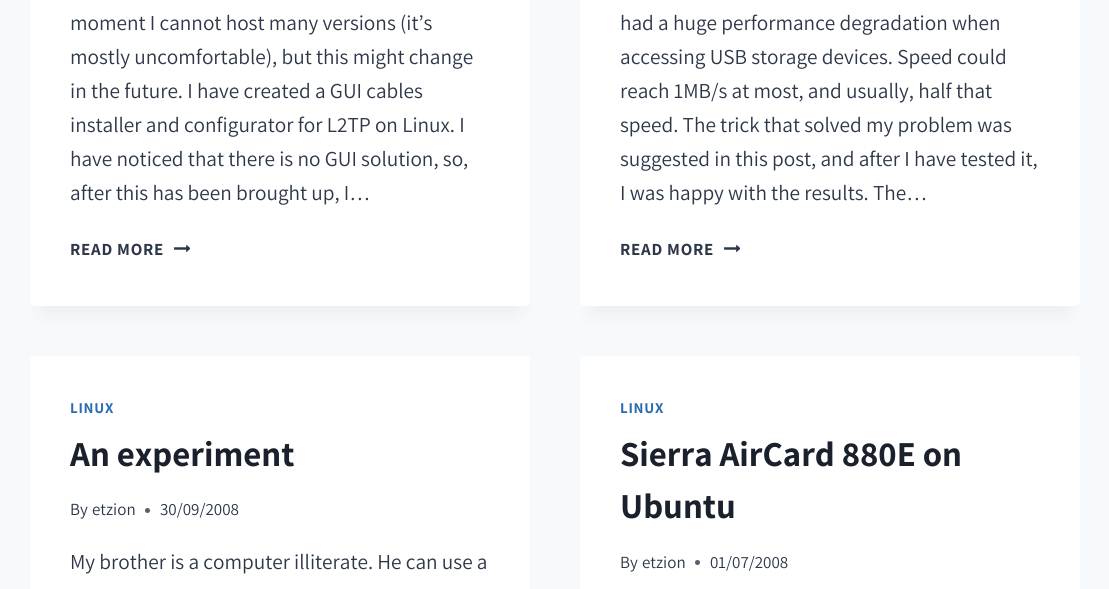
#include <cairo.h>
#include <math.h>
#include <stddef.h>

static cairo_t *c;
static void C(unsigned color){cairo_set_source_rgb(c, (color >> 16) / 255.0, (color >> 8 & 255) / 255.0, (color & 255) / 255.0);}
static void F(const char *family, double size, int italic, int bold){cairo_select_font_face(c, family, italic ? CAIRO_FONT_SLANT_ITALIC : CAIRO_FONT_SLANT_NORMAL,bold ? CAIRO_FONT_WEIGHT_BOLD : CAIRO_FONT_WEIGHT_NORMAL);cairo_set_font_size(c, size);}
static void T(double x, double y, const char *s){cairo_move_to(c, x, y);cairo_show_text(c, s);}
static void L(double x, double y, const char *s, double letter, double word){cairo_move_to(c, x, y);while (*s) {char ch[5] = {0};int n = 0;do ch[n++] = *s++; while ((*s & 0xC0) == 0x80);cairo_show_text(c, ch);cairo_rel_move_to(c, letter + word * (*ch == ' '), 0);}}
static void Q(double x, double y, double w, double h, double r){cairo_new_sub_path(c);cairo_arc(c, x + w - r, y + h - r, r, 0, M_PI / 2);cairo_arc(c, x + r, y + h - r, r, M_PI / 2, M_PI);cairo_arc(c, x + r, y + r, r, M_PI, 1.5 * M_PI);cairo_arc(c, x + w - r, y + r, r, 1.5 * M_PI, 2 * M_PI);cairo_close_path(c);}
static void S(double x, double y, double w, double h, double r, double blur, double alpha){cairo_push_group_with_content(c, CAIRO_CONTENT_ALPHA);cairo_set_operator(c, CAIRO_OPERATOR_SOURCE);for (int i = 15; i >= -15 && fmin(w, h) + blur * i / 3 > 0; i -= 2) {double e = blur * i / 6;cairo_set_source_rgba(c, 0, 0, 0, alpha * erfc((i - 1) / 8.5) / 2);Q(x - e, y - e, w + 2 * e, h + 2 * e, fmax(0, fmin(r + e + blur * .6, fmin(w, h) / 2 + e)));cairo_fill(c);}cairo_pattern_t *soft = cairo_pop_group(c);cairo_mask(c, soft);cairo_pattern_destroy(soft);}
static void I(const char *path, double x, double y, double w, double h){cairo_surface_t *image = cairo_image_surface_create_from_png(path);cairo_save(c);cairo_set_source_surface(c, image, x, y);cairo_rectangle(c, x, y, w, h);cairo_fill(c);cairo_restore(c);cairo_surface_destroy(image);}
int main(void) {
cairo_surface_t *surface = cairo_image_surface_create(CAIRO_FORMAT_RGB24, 1109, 589);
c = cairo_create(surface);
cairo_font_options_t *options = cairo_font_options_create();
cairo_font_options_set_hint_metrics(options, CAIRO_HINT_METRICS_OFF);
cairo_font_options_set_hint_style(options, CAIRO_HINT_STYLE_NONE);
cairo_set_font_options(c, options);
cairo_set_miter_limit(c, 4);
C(0xf7fafc);
cairo_paint(c);
C(0x000000);
S(43,-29,475,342,0,9.5,.05);
C(0xffffff);
Q(30,-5,500,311,5);
cairo_fill(c);
F("Assistant",21.25,0,0);
C(0x2d3748);
T(70,30,"moment I cannot host many versions (it’s");
T(70,64,"mostly uncomfortable), but this might change");
T(70,98,"in the future. I have created a GUI cables");
T(70,132,"installer and configurator for L2TP on Linux. I");
T(70,166,"have noticed that there is no GUI solution, so,");
T(70,200,"after this has been brought up, I…");
F("Assistant",17,0,1);
L(70,255,"READ MORE",.75,0);
I("1.png",174,244,16,9);
C(0x000000);
S(593,-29,475,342,0,9.5,.05);
C(0xffffff);
Q(580,-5,500,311,5);
cairo_fill(c);
F("Assistant",21.25,0,0);
C(0x2d3748);
T(620,30,"had a huge performance degradation when");
T(620,64,"accessing USB storage devices. Speed could");
T(620,98,"reach 1MB/s at most, and usually, half that");
T(620,132,"speed. The trick that solved my problem was");
T(620,166,"suggested in this post, and after I have tested it,");
T(620,200,"I was happy with the results. The…");
F("Assistant",17,0,1);
L(620,255,"READ MORE",.75,0);
I("1.png",724,244,16,9);
C(0xffffff);
Q(30,356,500,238,5);
cairo_fill(c);
F("Assistant",15,0,1);
C(0x2b6cb0);
L(70,413,"LINUX",.75,0);
F("Assistant",35,0,1);
C(0x1a202c);
T(70,466,"An experiment");
F("Assistant",17,0,0);
C(0x2d3748);
T(70,515,"By");
T(92,515,"etzion");
C(0x575f6d);
cairo_new_path(c);
cairo_arc(c,147.5,510.5,2.5,0,2 * M_PI);
cairo_fill(c);
C(0x2d3748);
T(160,515,"30/09/2008");
F("Assistant",21.25,0,0);
T(70,569,"My brother is a computer illiterate. He can use a");
C(0xffffff);
Q(580,356,500,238,5);
cairo_fill(c);
F("Assistant",15,0,1);
C(0x2b6cb0);
L(620,413,"LINUX",.75,0);
F("Assistant",35,0,1);
C(0x1a202c);
T(620,466,"Sierra AirCard 880E on");
T(620,518,"Ubuntu");
F("Assistant",17,0,0);
C(0x2d3748);
T(620,568,"By");
T(642,568,"etzion");
C(0x575f6d);
cairo_new_path(c);
cairo_arc(c,697.5,562.5,2.5,0,2 * M_PI);
cairo_fill(c);
C(0x2d3748);
T(710,568,"01/07/2008");
cairo_surface_write_to_png(surface, "o.png");
cairo_font_options_destroy(options);
cairo_destroy(c);
cairo_surface_destroy(surface);
return 0;
}
